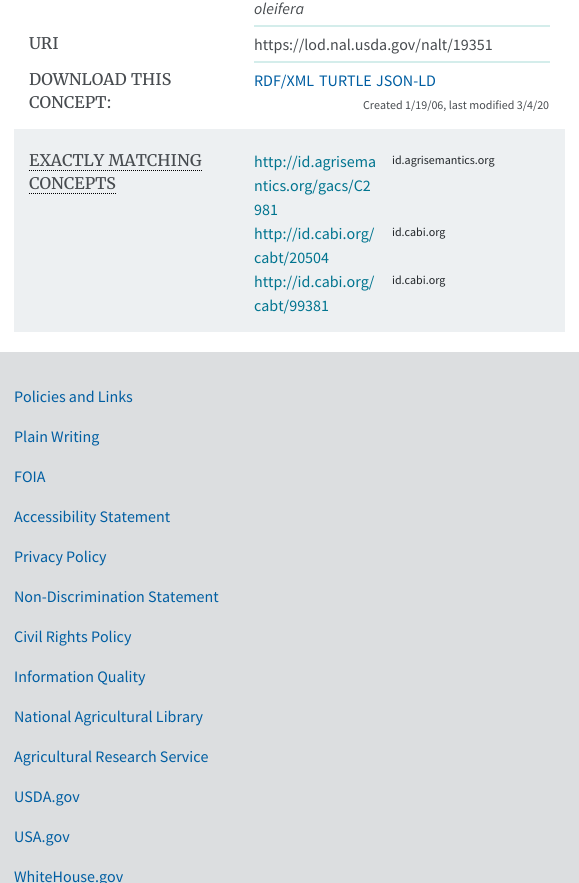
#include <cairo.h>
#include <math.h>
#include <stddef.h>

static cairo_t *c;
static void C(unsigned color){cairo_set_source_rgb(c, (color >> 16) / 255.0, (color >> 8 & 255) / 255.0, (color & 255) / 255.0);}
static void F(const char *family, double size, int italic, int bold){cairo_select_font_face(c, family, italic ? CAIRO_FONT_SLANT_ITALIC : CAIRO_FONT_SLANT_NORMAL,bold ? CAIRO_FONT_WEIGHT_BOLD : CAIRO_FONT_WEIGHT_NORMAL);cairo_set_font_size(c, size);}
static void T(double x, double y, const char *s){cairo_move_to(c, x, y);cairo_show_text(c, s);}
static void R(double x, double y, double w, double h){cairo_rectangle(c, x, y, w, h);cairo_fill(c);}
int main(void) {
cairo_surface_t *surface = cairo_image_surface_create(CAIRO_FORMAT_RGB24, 579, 883);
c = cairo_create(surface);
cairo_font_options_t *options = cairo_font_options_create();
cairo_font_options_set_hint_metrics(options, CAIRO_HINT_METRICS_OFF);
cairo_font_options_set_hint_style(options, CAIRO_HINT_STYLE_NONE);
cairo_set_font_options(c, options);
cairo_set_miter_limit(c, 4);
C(0xffffff);
cairo_paint(c);
C(0xd4edeb);
R(254,25,296,2);
F("Source Sans Pro",16,1,0);
C(0x474b4f);
T(254,14,"oleifera");
F("Merriweather",16,0,0);
T(29,49,"URI");
C(0xd4edeb);
R(254,61,296,2);
F("Source Sans Pro",16,0,0);
C(0x474b4f);
T(254,50,"https://lod.nal.usda.gov/nalt/19351");
F("Merriweather",16,0,0);
T(29,85,"DOWNLOAD THIS");
T(29,108,"CONCEPT:");
F("Source Sans Pro",16,0,0);
C(0x005ea2);
T(254,86,"RDF/XML");
T(319,86,"TURTLE");
T(376,86,"JSON-LD");
F("Source Sans Pro",12,0,0);
C(0x474b4f);
T(363,109,"Created 1/19/06, last modified 3/4/20");
C(0xedf0f2);
R(14,129,551,203);
F("Merriweather",16,0,0);
C(0x474b4f);
T(29,166,"EXACTLY MATCHING");
cairo_new_path(c);
cairo_move_to(c,29,170.5);
cairo_line_to(c,202,170.5);
C(0x000000);
cairo_set_line_width(c,1);
cairo_set_dash(c,(double[]){1,1},2,0);
cairo_stroke(c);
C(0x474b4f);
T(29,189,"CONCEPTS");
cairo_new_path(c);
cairo_move_to(c,29,193.5);
cairo_line_to(c,116,193.5);
C(0x000000);
cairo_stroke(c);
F("Source Sans Pro",16,0,0);
C(0x00748f);
T(254,167,"http://id.agrisema");
T(254,191,"ntics.org/gacs/C2");
T(254,215,"981");
F("Source Sans Pro",12,0,0);
C(0x212529);
T(392,164,"id.agrisemantics.org");
F("Source Sans Pro",16,0,0);
C(0x00748f);
T(254,239,"http://id.cabi.org/");
T(254,263,"cabt/20504");
F("Source Sans Pro",12,0,0);
C(0x212529);
T(392,236,"id.cabi.org");
F("Source Sans Pro",16,0,0);
C(0x00748f);
T(254,287,"http://id.cabi.org/");
T(254,311,"cabt/99381");
F("Source Sans Pro",12,0,0);
C(0x212529);
T(392,284,"id.cabi.org");
C(0xdcdee0);
R(0,352,579,531);
F("Source Sans Pro",16,0,0);
C(0x005ea2);
T(14,402,"Policies and Links");
T(14,442,"Plain Writing");
T(14,482,"FOIA");
T(14,522,"Accessibility Statement");
T(14,562,"Privacy Policy");
T(14,602,"Non-Discrimination Statement");
T(14,642,"Civil Rights Policy");
T(14,682,"Information Quality");
T(14,722,"National Agricultural Library");
T(14,762,"Agricultural Research Service");
T(14,802,"USDA.gov");
T(14,842,"USA.gov");
T(14,882,"WhiteHouse.gov");
cairo_surface_write_to_png(surface, "o.png");
cairo_font_options_destroy(options);
cairo_destroy(c);
cairo_surface_destroy(surface);
return 0;
}
